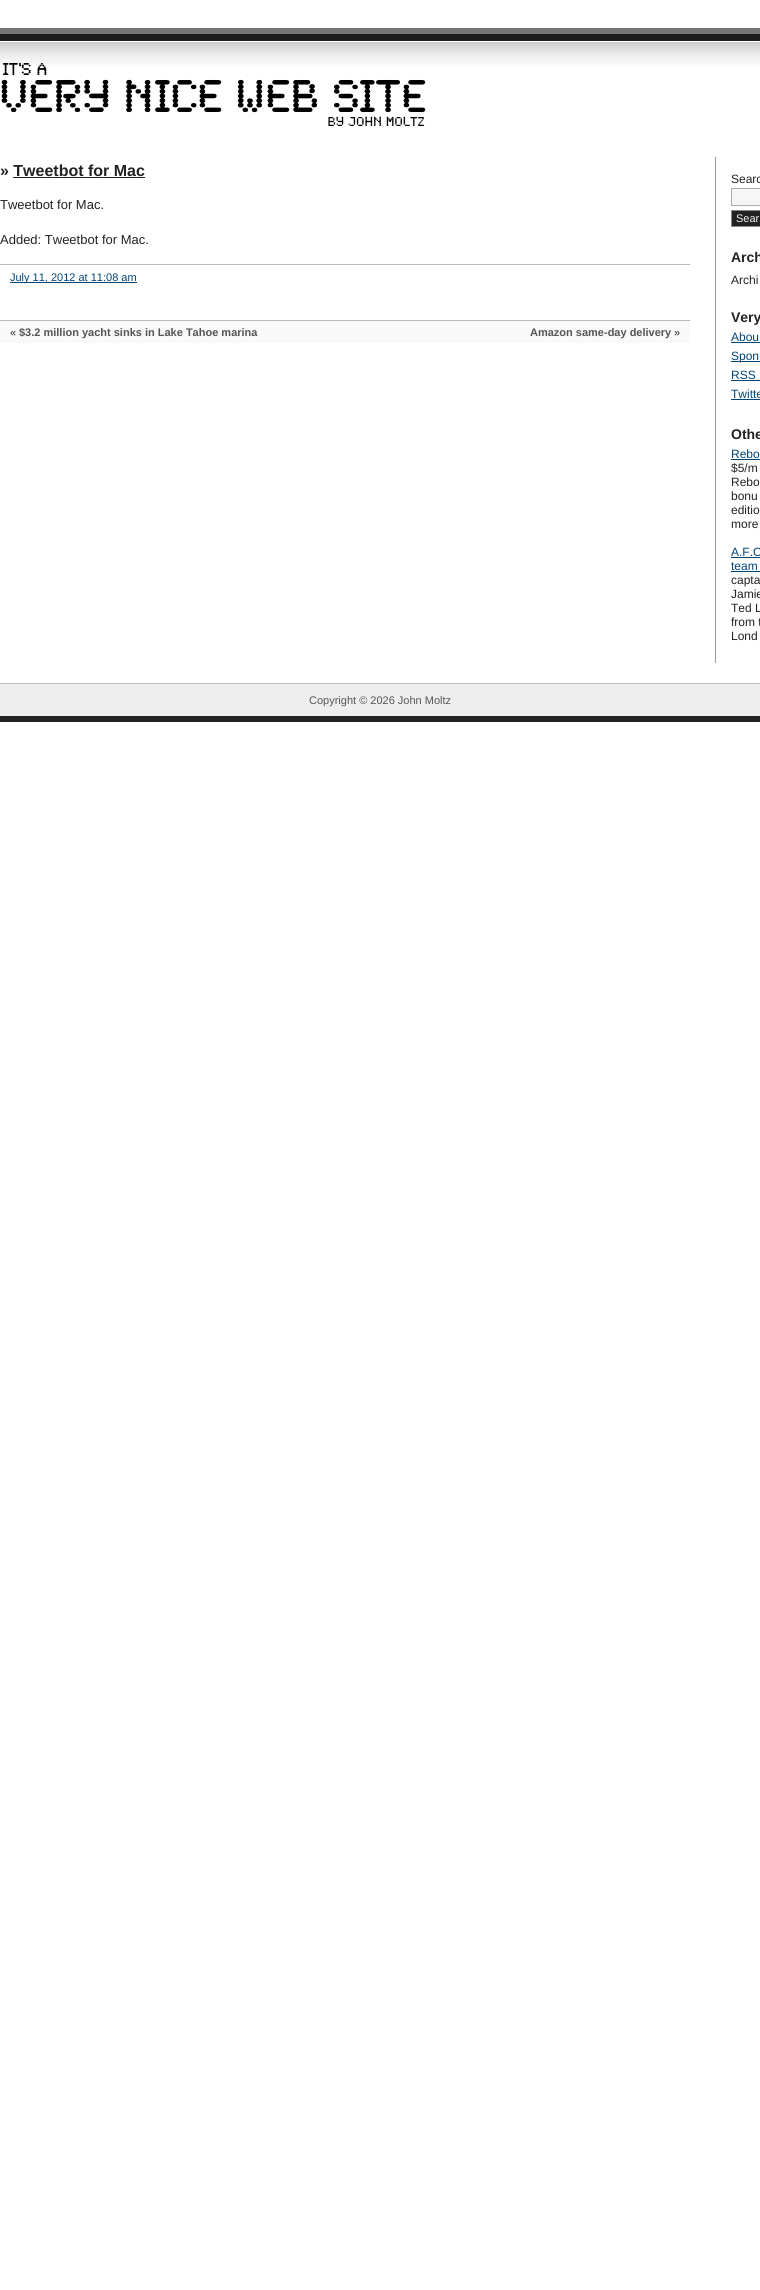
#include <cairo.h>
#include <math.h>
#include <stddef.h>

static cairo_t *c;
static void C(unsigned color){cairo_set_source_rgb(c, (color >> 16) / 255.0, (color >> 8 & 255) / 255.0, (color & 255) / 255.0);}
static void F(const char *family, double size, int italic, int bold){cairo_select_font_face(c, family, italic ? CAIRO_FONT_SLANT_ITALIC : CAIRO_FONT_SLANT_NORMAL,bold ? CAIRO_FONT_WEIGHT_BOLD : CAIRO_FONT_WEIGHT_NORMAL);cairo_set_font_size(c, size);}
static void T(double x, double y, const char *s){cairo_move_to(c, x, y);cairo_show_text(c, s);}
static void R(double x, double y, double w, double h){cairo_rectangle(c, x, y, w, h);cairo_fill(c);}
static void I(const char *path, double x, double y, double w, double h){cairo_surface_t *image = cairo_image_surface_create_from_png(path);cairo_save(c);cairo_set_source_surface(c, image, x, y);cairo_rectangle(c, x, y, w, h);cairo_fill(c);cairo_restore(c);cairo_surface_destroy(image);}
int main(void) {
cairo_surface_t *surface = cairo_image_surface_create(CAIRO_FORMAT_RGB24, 760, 2290);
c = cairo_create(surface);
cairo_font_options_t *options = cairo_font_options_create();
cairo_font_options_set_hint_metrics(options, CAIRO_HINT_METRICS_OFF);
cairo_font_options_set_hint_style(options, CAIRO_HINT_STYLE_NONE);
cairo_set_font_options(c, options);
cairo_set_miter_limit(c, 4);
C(0xffffff);
cairo_paint(c);
I("1.png",0,28,760,38);
I("2.png",1,63,425,63);
F("Liberation Sans",16,0,1);
C(0x222222);
T(0,176,"» Tweetbot for Mac");
R(13,177,132,1);
F("Liberation Sans",13,0,0);
T(0,209,"Tweetbot for Mac.");
T(0,244,"Added: Tweetbot for Mac.");
C(0xbbbbbb);
R(0,264,690,1);
C(0x004477);
R(10,282,127,1);
F("Liberation Sans",11,0,0);
T(10,281,"July 11, 2012 at 11:08 am");
C(0xf9f9f9);
R(0,321,690,22);
C(0xbbbbbb);
R(0,320,690,1);
C(0x222222);
T(10,336,"«");
F("Liberation Sans",11,0,1);
C(0x555555);
T(19,336,"$3.2 million yacht sinks in Lake Tahoe marina");
T(530,336,"Amazon same-day delivery");
F("Liberation Sans",11,0,0);
C(0x222222);
T(674,336,"»");
C(0x999999);
R(715,157,1,506);
F("Liberation Sans",12,0,0);
C(0x222222);
T(731,183,"Searc");
C(0xf6f6f6);
cairo_rectangle(c,731.5,188.5,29,17);
cairo_fill_preserve(c);
C(0xaaaaaa);
cairo_set_line_width(c,1);
cairo_stroke(c);
C(0x222222);
cairo_rectangle(c,731.5,210.5,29,16);
cairo_fill_preserve(c);
C(0x888888);
cairo_stroke(c);
F("Liberation Sans",11,0,0);
C(0xeeeeee);
T(736,222,"Sear");
F("Liberation Sans",14,0,1);
C(0x222222);
T(731,262,"Arch");
F("Liberation Sans",12,0,0);
T(731,284,"Archi");
F("Liberation Sans",14,0,1);
T(731,322,"Very");
F("Liberation Sans",12,0,0);
C(0x004477);
T(731,341,"Abou");
R(731,342,29,1);
R(731,361,29,1);
T(731,360,"Spon");
T(731,379,"RSS");
R(731,380,29,1);
T(731,398,"Twitte");
R(731,399,29,1);
F("Liberation Sans",14,0,1);
C(0x222222);
T(731,439,"Othe");
F("Liberation Sans",12,0,0);
C(0x004477);
T(731,458,"Rebo");
R(731,459,29,1);
C(0x222222);
T(731,472,"$5/m");
T(731,486,"Rebo");
T(731,500,"bonu");
T(731,514,"editio");
T(731,528,"more");
C(0x004477);
T(731,556,"A.F.C");
R(731,557,29,1);
T(731,570,"team");
R(731,571,29,1);
C(0x222222);
T(731,584,"capta");
T(731,598,"Jamie");
T(731,612,"Ted L");
T(731,626,"from t");
T(731,640,"Lond");
C(0xeeeeee);
R(0,684,760,32);
C(0xbbbbbb);
R(0,683,760,1);
C(0x222222);
R(0,716,760,6);
F("Liberation Sans",11,0,0);
C(0x555555);
T(309,704,"Copyright © 2026 John Moltz");
cairo_surface_write_to_png(surface, "o.png");
cairo_font_options_destroy(options);
cairo_destroy(c);
cairo_surface_destroy(surface);
return 0;
}
